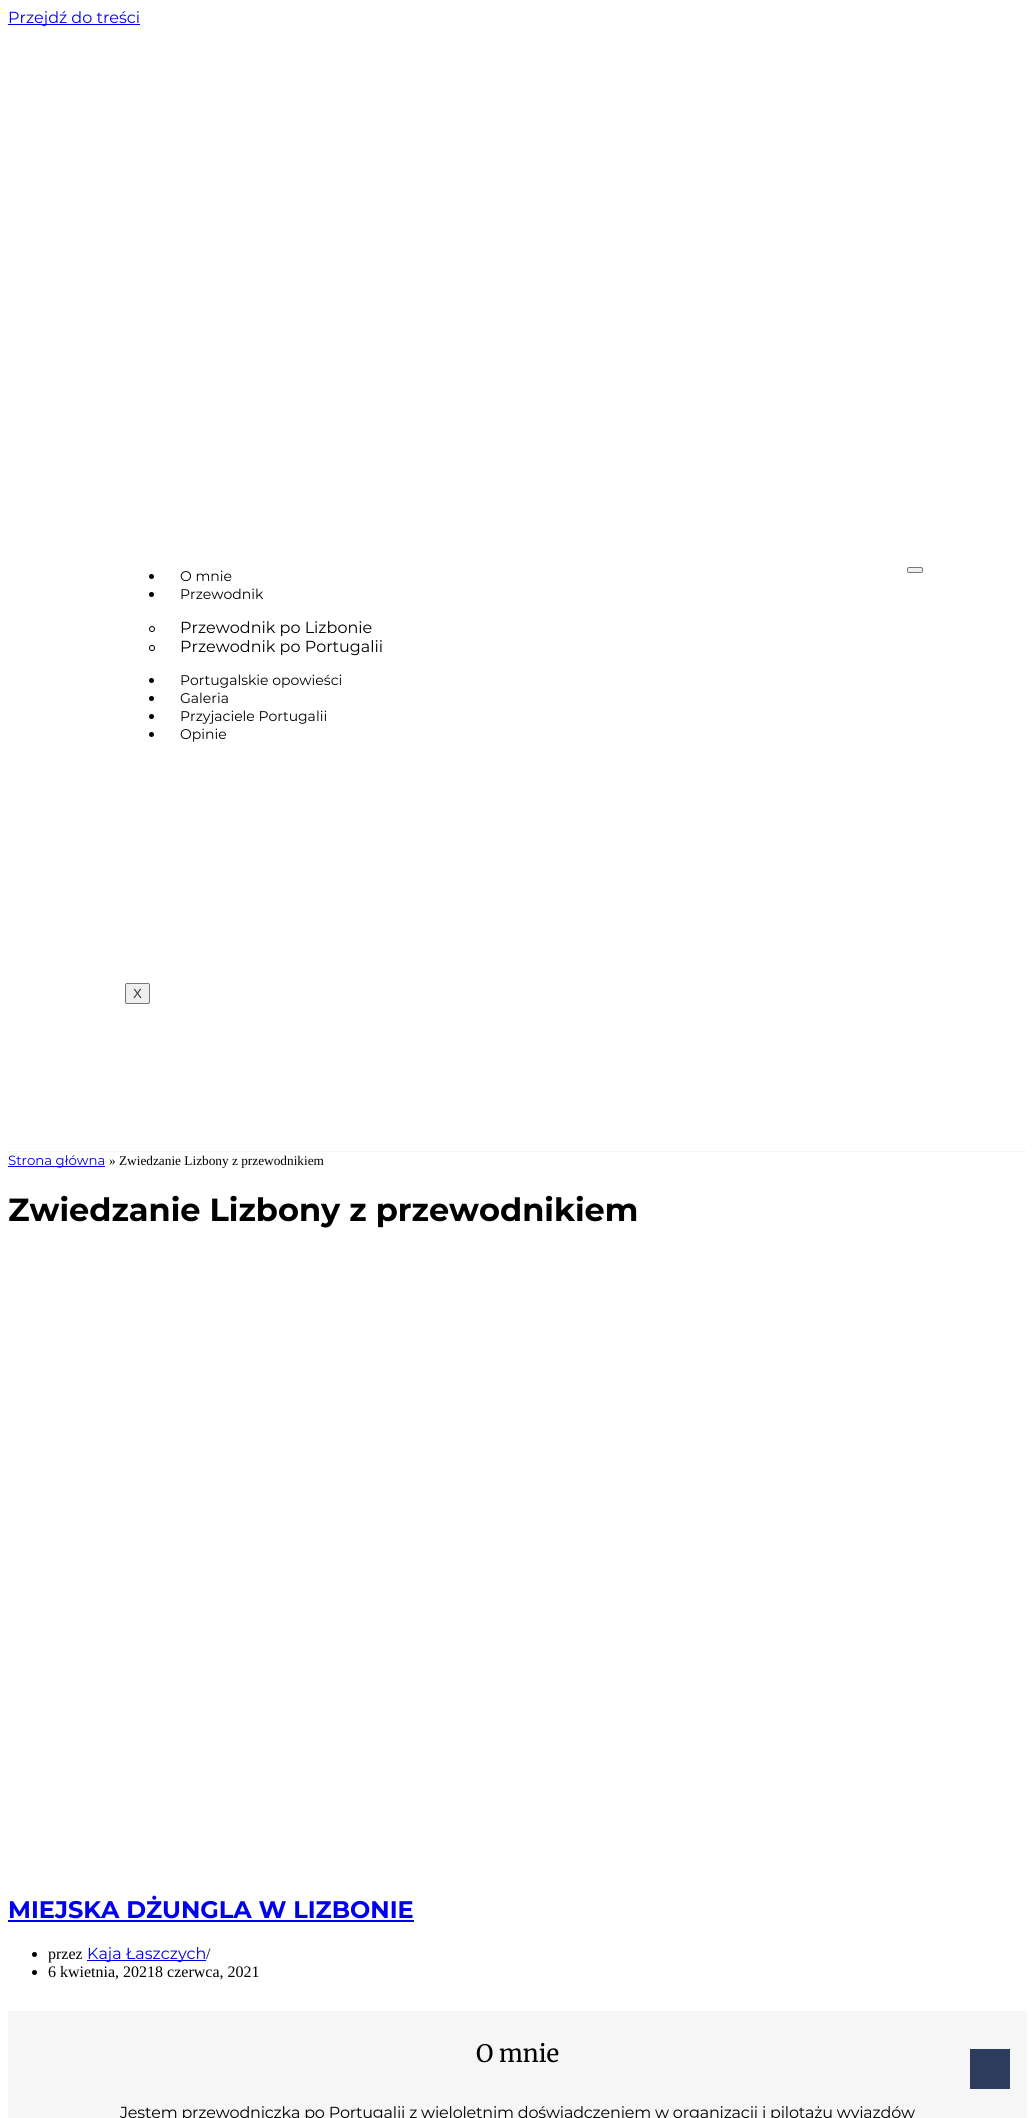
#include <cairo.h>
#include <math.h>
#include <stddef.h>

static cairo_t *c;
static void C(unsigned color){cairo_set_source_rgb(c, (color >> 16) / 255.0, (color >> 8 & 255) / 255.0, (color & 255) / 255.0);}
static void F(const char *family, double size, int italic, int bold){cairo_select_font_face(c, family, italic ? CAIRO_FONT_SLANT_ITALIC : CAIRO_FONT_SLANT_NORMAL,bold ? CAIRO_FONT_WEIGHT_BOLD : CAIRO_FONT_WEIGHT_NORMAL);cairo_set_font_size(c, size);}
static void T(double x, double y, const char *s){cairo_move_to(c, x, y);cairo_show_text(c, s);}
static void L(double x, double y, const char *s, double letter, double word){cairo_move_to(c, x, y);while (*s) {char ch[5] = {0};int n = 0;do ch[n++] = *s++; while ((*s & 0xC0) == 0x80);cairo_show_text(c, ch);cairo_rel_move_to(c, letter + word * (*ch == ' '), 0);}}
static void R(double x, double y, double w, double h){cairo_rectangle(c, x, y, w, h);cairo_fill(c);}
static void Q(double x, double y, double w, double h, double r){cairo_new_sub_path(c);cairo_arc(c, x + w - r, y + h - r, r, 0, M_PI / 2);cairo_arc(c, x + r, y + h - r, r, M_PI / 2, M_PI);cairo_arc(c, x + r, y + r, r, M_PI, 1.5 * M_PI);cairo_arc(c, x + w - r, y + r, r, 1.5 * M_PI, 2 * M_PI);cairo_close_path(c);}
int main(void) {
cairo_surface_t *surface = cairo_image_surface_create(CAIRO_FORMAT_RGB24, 1035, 2118);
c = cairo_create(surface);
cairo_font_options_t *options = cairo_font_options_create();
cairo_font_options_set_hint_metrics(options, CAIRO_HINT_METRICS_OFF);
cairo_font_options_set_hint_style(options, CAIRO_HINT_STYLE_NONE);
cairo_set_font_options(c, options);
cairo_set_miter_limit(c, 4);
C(0xffffff);
cairo_paint(c);
C(0x0000ee);
R(8,24,132,1);
F("Montserrat",16,0,0);
T(8,23,"Przejdź do treści");
C(0xf6f6f6);
R(8,1151,1019,1);
C(0x000000);
cairo_new_path(c);
cairo_arc(c,151.5,576.5,2.5,0,2 * M_PI);
cairo_fill(c);
F("Montserrat",14,0,0);
T(180,581,"O mnie");
cairo_new_path(c);
cairo_arc(c,151.5,594.5,2.5,0,2 * M_PI);
cairo_fill(c);
T(180,599,"Przewodnik");
cairo_new_path(c);
cairo_arc(c,152,629,2.5,0,2 * M_PI);
cairo_set_line_width(c,1);
cairo_stroke(c);
F("Montserrat",16,0,0);
T(180,633,"Przewodnik po Lizbonie");
cairo_new_path(c);
cairo_arc(c,152,648,2.5,0,2 * M_PI);
cairo_stroke(c);
T(180,652,"Przewodnik po Portugalii");
cairo_new_path(c);
cairo_arc(c,151.5,680.5,2.5,0,2 * M_PI);
cairo_fill(c);
F("Montserrat",14,0,0);
T(180,685,"Portugalskie opowieści");
cairo_new_path(c);
cairo_arc(c,151.5,698.5,2.5,0,2 * M_PI);
cairo_fill(c);
T(180,703,"Galeria");
cairo_new_path(c);
cairo_arc(c,151.5,716.5,2.5,0,2 * M_PI);
cairo_fill(c);
T(180,721,"Przyjaciele Portugalii");
cairo_new_path(c);
cairo_arc(c,151.5,734.5,2.5,0,2 * M_PI);
cairo_fill(c);
T(180,739,"Opinie");
C(0xefefef);
Q(125.5,983.5,24,20,1.5);
cairo_fill_preserve(c);
C(0x767676);
cairo_stroke(c);
F("Liberation Sans",13.3,0,0);
C(0x333333);
T(133,998,"X");
C(0xefefef);
Q(907.5,567.5,15,5,1.5);
cairo_fill_preserve(c);
C(0x767676);
cairo_stroke(c);
C(0xf6f6f6);
R(8,2011,1019,107);
C(0x2b3c5d);
R(970,2049,40,40);
C(0x0000ee);
R(8,1166,97,1);
F("Montserrat",13.3,0,0);
T(8,1165,"Strona główna");
F("Liberation Serif",13.3,0,0);
C(0x000000);
T(109,1165,"» Zwiedzanie Lizbony z przewodnikiem");
F("Montserrat",32,0,1);
T(8,1221,"Zwiedzanie Lizbony z przewodnikiem");
F("Montserrat",24,0,1);
C(0x0000ee);
T(8,1918,"MIEJSKA DŻUNGLA W LIZBONIE");
R(8,1920,406,2);
C(0x000000);
cairo_new_path(c);
cairo_arc(c,34.5,1954.5,2.5,0,2 * M_PI);
cairo_fill(c);
F("Liberation Serif",16,0,0);
T(48,1959,"przez");
C(0x0000ee);
R(87,1960,119,1);
F("Montserrat",16,0,0);
T(87,1959,"Kaja Łaszczych");
F("Liberation Serif",16,0,0);
C(0x000000);
T(206,1959,"/");
cairo_new_path(c);
cairo_arc(c,34.5,1972.5,2.5,0,2 * M_PI);
cairo_fill(c);
T(48,1977,"6 kwietnia, 20218 czerwca, 2021");
F("Merriweather",24,0,0);
T(476,2062,"O mnie");
F("Montserrat",16,0,0);
L(120,2118,"Jestem przewodniczką po Portugalii z wieloletnim doświadczeniem w organizacji i pilotażu wyjazdów",-.2,0);
cairo_surface_write_to_png(surface, "o.png");
cairo_font_options_destroy(options);
cairo_destroy(c);
cairo_surface_destroy(surface);
return 0;
}
